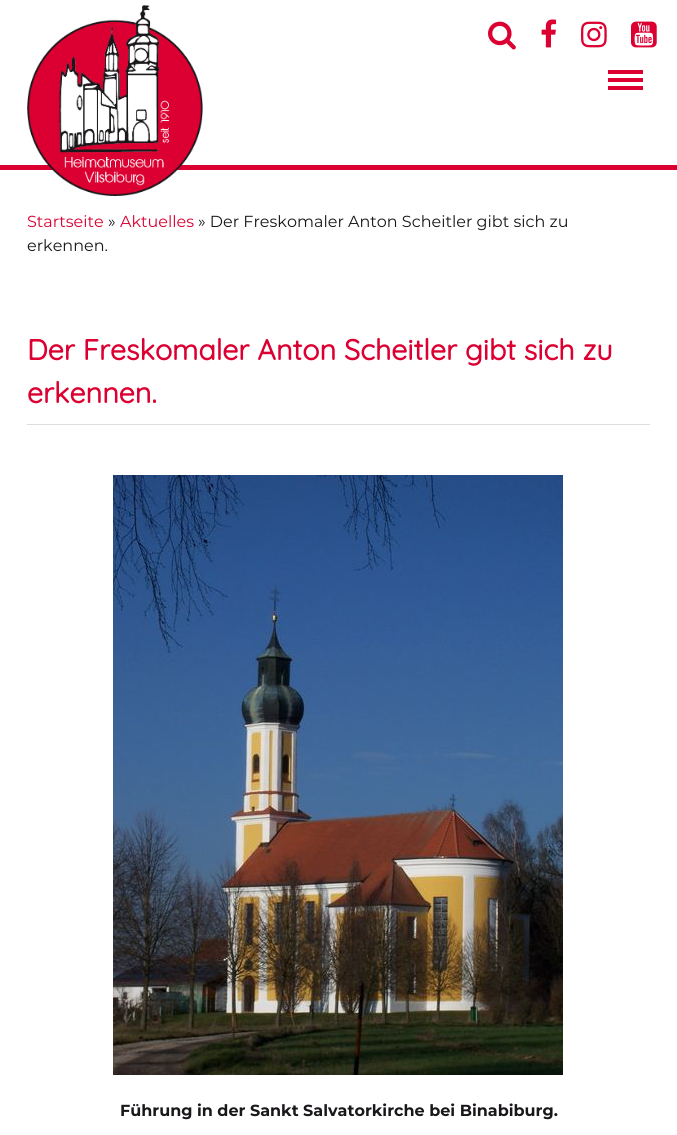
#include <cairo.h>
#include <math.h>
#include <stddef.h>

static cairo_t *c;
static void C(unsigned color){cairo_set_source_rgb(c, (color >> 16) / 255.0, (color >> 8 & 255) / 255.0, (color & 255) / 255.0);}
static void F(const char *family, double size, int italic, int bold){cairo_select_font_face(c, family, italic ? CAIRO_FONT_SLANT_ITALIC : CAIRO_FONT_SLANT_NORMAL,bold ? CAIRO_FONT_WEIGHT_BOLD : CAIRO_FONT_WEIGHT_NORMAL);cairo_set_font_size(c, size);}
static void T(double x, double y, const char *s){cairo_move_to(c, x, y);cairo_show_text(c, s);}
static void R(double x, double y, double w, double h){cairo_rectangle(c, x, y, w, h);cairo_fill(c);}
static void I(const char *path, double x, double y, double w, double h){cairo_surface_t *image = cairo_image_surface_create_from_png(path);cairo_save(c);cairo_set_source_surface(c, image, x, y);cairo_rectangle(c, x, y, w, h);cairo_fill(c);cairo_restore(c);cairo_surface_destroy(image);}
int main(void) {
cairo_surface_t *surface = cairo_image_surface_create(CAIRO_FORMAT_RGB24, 677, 1135);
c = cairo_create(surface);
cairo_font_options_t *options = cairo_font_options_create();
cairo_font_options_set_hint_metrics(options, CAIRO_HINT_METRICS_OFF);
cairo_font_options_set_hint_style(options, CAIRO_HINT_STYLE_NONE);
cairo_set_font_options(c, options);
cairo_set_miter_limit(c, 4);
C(0xffffff);
cairo_paint(c);
C(0xdb0031);
R(0,165,677,5);
I("1.png",27,5,176,191);
I("2.png",488,21,28,29);
I("3.png",541,19,16,29);
I("4.png",581,21,26,27);
I("5.png",631,21,26,27);
R(608,70,35,4);
R(608,78,35,4);
R(608,86,35,4);
F("Montserrat",16,0,0);
T(27,227,"Startseite");
C(0x1a171b);
T(108,227,"»");
C(0xdb0031);
T(120,227,"Aktuelles");
C(0x1a171b);
T(198,227,"» Der Freskomaler Anton Scheitler gibt sich zu");
T(27,251,"erkennen.");
C(0xdddddd);
R(27,424,623,1);
F("Quicksand",28.8,0,1);
C(0xdb0031);
T(27,360,"Der Freskomaler Anton Scheitler gibt sich zu");
T(27,403,"erkennen.");
I("6.png",113,475,450,600);
F("Montserrat",16,0,1);
C(0x1a171b);
T(120,1116,"Führung in der Sankt Salvatorkirche bei Binabiburg.");
cairo_surface_write_to_png(surface, "o.png");
cairo_font_options_destroy(options);
cairo_destroy(c);
cairo_surface_destroy(surface);
return 0;
}
